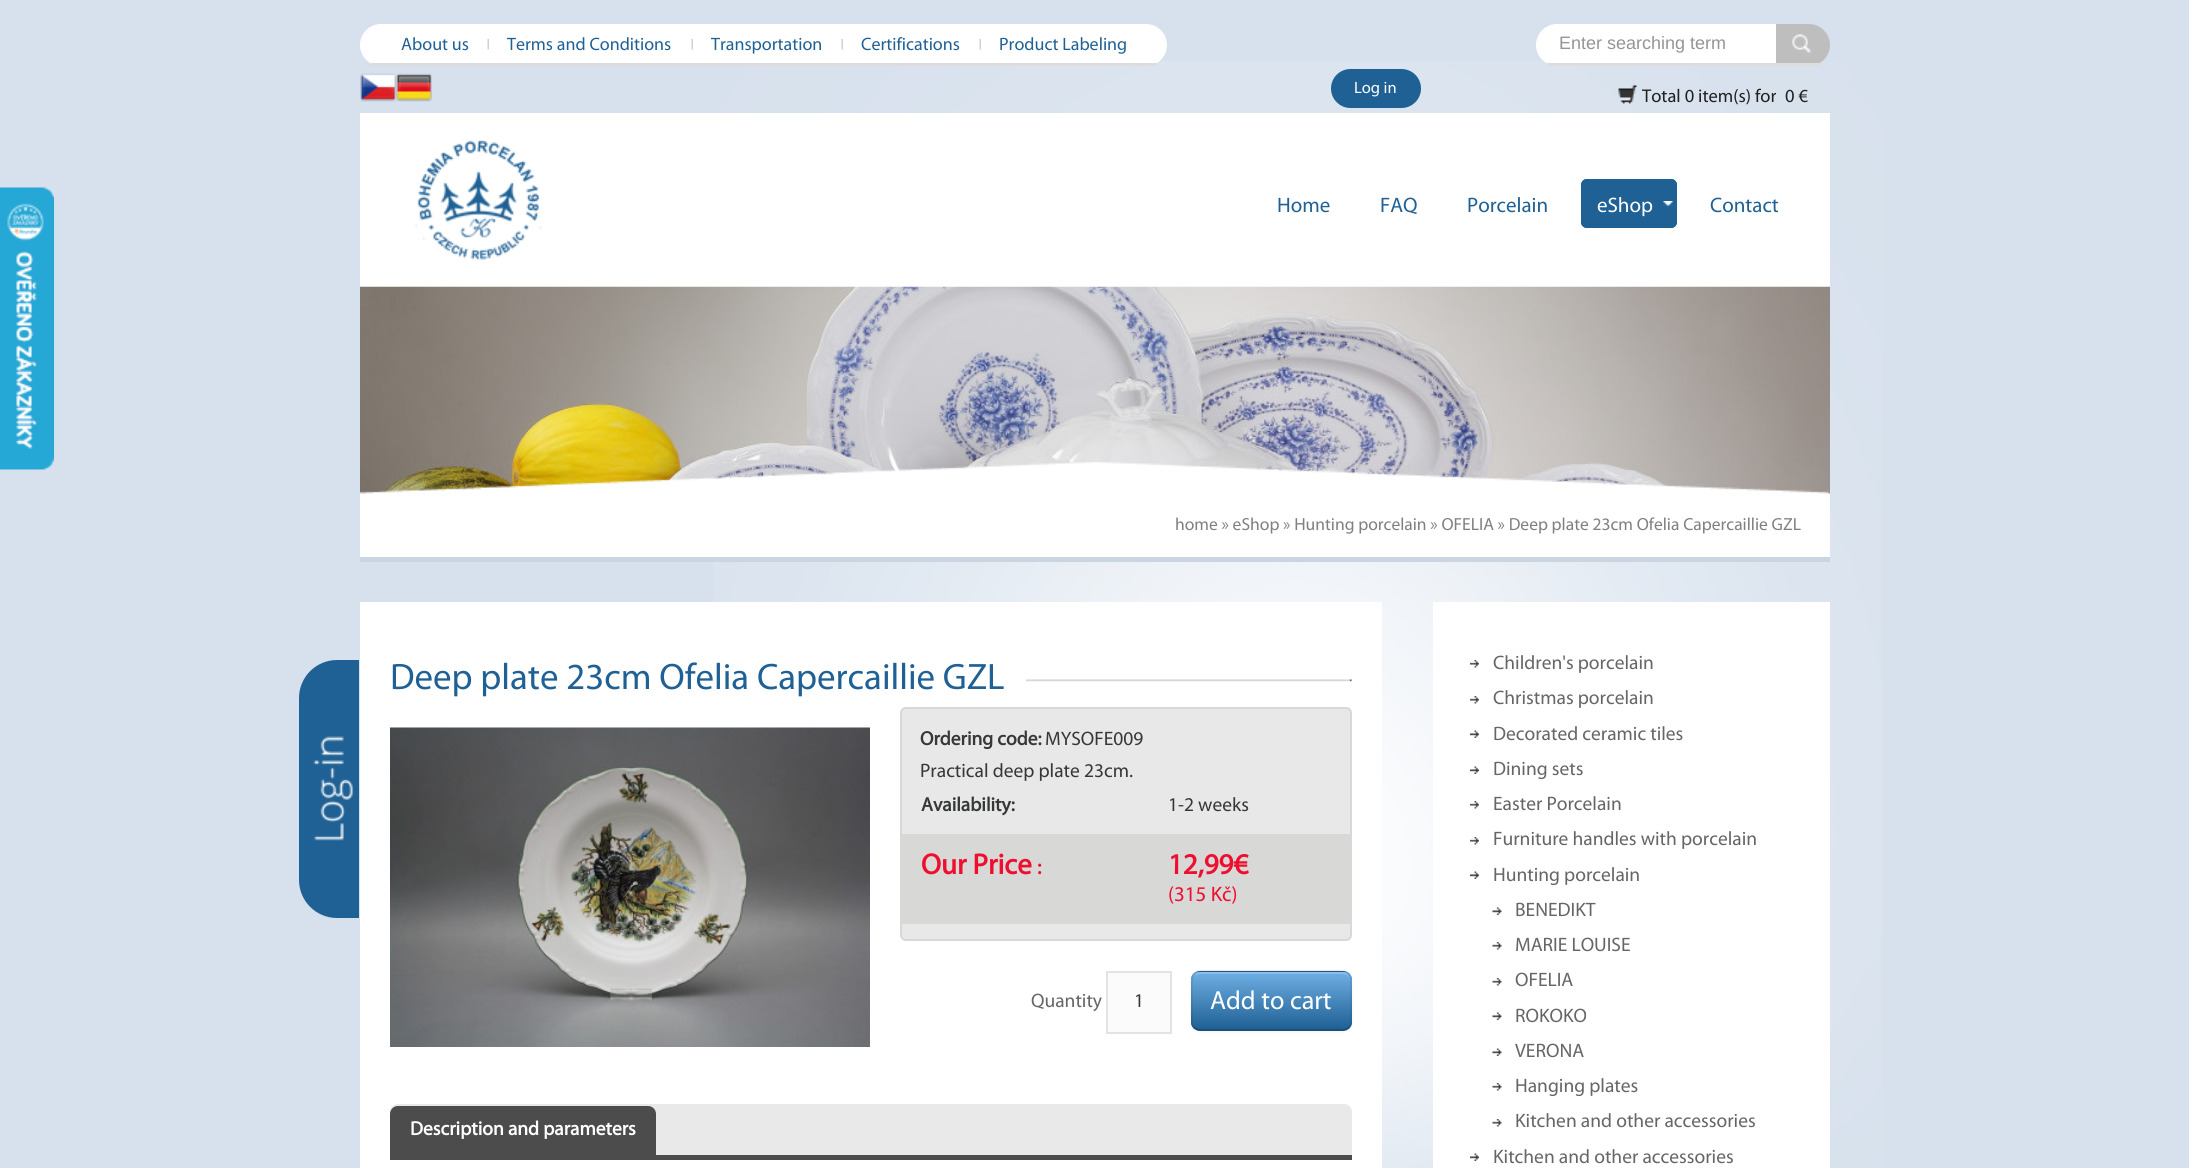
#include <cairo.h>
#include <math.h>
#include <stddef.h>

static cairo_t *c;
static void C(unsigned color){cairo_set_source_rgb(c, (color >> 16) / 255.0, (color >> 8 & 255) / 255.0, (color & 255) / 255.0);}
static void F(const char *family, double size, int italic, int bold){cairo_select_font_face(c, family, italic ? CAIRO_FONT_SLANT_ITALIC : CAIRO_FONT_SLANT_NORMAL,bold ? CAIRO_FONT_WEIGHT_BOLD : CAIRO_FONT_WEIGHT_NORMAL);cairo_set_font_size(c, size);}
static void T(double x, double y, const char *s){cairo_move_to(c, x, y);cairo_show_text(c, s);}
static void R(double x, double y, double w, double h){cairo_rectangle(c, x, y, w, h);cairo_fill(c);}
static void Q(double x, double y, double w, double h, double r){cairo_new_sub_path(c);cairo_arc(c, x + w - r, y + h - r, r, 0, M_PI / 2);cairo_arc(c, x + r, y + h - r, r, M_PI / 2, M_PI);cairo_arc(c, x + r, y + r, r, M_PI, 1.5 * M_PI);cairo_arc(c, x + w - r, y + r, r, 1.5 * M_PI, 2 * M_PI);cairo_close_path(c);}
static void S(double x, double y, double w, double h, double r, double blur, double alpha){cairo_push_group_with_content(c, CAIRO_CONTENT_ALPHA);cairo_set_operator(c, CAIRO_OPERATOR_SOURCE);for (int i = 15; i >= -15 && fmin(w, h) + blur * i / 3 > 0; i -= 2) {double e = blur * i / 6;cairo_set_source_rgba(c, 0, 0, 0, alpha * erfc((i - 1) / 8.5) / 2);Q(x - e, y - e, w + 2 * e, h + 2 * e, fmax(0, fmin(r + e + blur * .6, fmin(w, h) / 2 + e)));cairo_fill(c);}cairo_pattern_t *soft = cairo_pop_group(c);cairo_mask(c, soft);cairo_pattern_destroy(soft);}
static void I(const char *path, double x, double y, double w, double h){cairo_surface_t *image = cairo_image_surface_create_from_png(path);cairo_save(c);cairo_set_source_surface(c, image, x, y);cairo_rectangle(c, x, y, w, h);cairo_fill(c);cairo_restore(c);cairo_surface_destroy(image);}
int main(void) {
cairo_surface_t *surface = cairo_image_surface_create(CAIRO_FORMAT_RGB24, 2189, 1168);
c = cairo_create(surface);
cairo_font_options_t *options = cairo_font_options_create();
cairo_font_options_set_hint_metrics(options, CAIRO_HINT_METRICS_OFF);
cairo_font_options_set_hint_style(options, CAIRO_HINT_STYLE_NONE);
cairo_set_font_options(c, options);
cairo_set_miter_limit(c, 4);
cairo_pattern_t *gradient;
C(0xd7e1ed);
cairo_paint(c);
I("1.png",713,61,1169,1107);
I("2.png",0,187,54,283);
C(0xffffff);
Q(360,24,807,42,21);
cairo_fill(c);
C(0xdddddd);
R(371,63,786,3);
F("Myriad",18,0,0);
C(0x206195);
T(401,50,"About us");
I("3.png",487,39,2,11);
T(507,50,"Terms and Conditions");
I("3.png",691,39,2,11);
T(711,50,"Transportation");
I("3.png",841,39,2,11);
T(861,50,"Certifications");
I("3.png",979,39,2,11);
T(999,50,"Product Labeling");
C(0xffffff);
cairo_new_path(c);
cairo_move_to(c,1557,24);
cairo_line_to(c,1776,24);
cairo_line_to(c,1776,66);
cairo_line_to(c,1557,66);
cairo_curve_to(c,1545.5,66,1536,56.5,1536,45);
cairo_curve_to(c,1536,33.5,1545.5,24,1557,24);
cairo_close_path(c);
cairo_fill(c);
C(0xdddddd);
R(1547,63,229,3);
F("Liberation Sans",18,0,0);
C(0x959595);
T(1559,49,"Enter searching term");
C(0xbebebe);
cairo_new_path(c);
cairo_move_to(c,1776,24);
cairo_line_to(c,1809,24);
cairo_curve_to(c,1820.5,24,1830,33.5,1830,45);
cairo_curve_to(c,1830,56.5,1820.5,66,1809,66);
cairo_line_to(c,1776,66);
cairo_close_path(c);
cairo_fill(c);
I("4.png",1792,34,19,19);
C(0xdddddd);
R(1776,63,44,3);
I("5.png",360,73,36,29);
I("6.png",396,73,36,29);
C(0x206195);
Q(1331,69,90,39,19.5);
cairo_fill(c);
F("Myriad",16.5,0,0);
C(0xffffff);
T(1354,93,"Log in");
I("7.png",1618,85,19,20);
F("Myriad",18.5,0,0);
C(0x202020);
T(1642,102,"Total 0 item(s) for");
T(1785,102,"0 €");
C(0xffffff);
R(360,113,1470,174);
I("8.png",415,140,127,120);
I("9.png",360,286,1470,208);
F("Myriad",21,0,0);
C(0x206195);
T(1277,212,"Home");
T(1380,212,"FAQ");
T(1467,212,"Porcelain");
Q(1581,179,96,49,6);
cairo_fill(c);
I("10.png",1663,201,10,5);
Q(1582,180,94,47,5);
cairo_stroke(c);
C(0xffffff);
T(1597,212,"eShop");
C(0x206195);
T(1710,212,"Contact");
I("11.png",360,462,1470,50);
cairo_new_path(c);
cairo_move_to(c,337,660);
cairo_line_to(c,359,660);
cairo_line_to(c,359,918);
cairo_line_to(c,337,918);
cairo_curve_to(c,316,918,299,901,299,880);
cairo_line_to(c,299,698);
cairo_curve_to(c,299,677,316,660,337,660);
cairo_close_path(c);
cairo_fill(c);
I("12.png",313,736,40,105);
C(0xcbd5e1);
R(360,557,1470,5);
C(0xffffff);
R(360,512,1470,45);
F("Myriad",17.55,0,0);
C(0x808080);
T(1175,530,"home » eShop » Hunting porcelain » OFELIA » Deep plate 23cm Ofelia Capercaillie GZL");
C(0xffffff);
R(360,602,1022,566);
I("13.png",1026,679,326,3);
F("Myriad",36.9,0,0);
C(0x206195);
T(390,689,"Deep plate 23cm Ofelia Capercaillie GZL");
I("14.png",390,727,480,320);
C(0xe8e8e8);
Q(901,708,450,232,5);
cairo_fill_preserve(c);
C(0xd8d9d7);
cairo_stroke(c);
F("Myriad",19.5,0,1);
C(0x353738);
T(920,745,"Ordering code:");
F("Myriad",19.5,0,0);
T(1045,745,"MYSOFE009");
T(920,777,"Practical deep plate 23cm.");
F("Myriad",19.5,0,1);
T(921,811,"Availability:");
F("Myriad",19.5,0,0);
T(1168,811,"1-2 weeks");
C(0xd8d9d7);
R(902,834,448,90);
F("Myriad",29,0,1);
C(0xef0e2e);
T(921,874,"Our Price");
F("Myriad",21,0,1);
T(1037,874,":");
F("Myriad",29,0,1);
T(1168,874,"12,99€");
F("Myriad",21,0,0);
T(1168,901,"(315 Kč)");
F("Myriad",19.5,0,0);
C(0x666666);
T(1031,1007,"Quantity");
C(0xfbfbfb);
cairo_rectangle(c,1107,972,64,61);
cairo_fill_preserve(c);
C(0xe3e3e3);
cairo_stroke(c);
C(0x353738);
T(1134,1007,"1");
C(0x000000);
S(1191,972,161,60,9,1.5,.05);
C(0x206195);
Q(1191,971,161,60,9);
cairo_fill(c);
cairo_save(c);
Q(1191,971,161,60,9);
cairo_clip(c);
gradient = cairo_pattern_create_linear(1271,972,1271,1029);
cairo_pattern_add_color_stop_rgba(gradient,0,0.435,0.686,0.89,1);
cairo_pattern_add_color_stop_rgba(gradient,1,0.125,0.38,0.584,1);
cairo_set_source(c,gradient);
cairo_pattern_destroy(gradient);
R(1191,972,161,57);
cairo_restore(c);
cairo_set_source_rgba(c,1,1,1,0.2);
cairo_new_path(c);
cairo_move_to(c,1200,974);
cairo_line_to(c,1342,974);
cairo_curve_to(c,1347,974,1350,977,1350,981);
cairo_line_to(c,1350,980);
cairo_curve_to(c,1350,976,1346,972,1342,972);
cairo_line_to(c,1201,972);
cairo_curve_to(c,1198,972,1195,974,1194,977);
cairo_curve_to(c,1195,975,1198,974,1200,974);
cairo_close_path(c);
cairo_fill(c);
cairo_new_path(c);
cairo_move_to(c,1348.5,1027.5);
cairo_curve_to(c,1347,1029,1344.5,1030,1342.5,1030);
cairo_line_to(c,1200,1030);
cairo_curve_to(c,1198,1030,1195.5,1029,1194,1027.5);
cairo_set_source_rgba(c,0,0,0,0.25);
cairo_set_line_width(c,1.5);
cairo_stroke(c);
cairo_new_path(c);
cairo_move_to(c,1194,1027.5);
cairo_curve_to(c,1191,1024,1192,1019,1192,1014.5);
cairo_line_to(c,1192,1000.5);
cairo_curve_to(c,1192,967,1188,971,1224,971);
cairo_line_to(c,1319,971);
cairo_curve_to(c,1354.5,971,1351,967,1351,1000.5);
cairo_line_to(c,1351,1014.5);
cairo_curve_to(c,1351,1019,1351.5,1024,1348.5,1027.5);
cairo_set_source_rgba(c,0,0,0,0.1);
cairo_stroke(c);
F("Myriad",26.25,0,0);
C(0xffffff);
T(1210,1009,"Add to cart");
C(0xe9e9e9);
cairo_new_path(c);
cairo_move_to(c,398,1104);
cairo_line_to(c,1344,1104);
cairo_curve_to(c,1348.5,1104,1352,1107.5,1352,1112);
cairo_line_to(c,1352,1160);
cairo_line_to(c,390,1160);
cairo_line_to(c,390,1112);
cairo_curve_to(c,390,1107.5,393.5,1104,398,1104);
cairo_close_path(c);
cairo_fill(c);
C(0x4c4c4d);
R(390,1155,962,5);
cairo_new_path(c);
cairo_move_to(c,398,1106);
cairo_line_to(c,648,1106);
cairo_curve_to(c,652.5,1106,656,1109.5,656,1114);
cairo_line_to(c,656,1155);
cairo_line_to(c,390,1155);
cairo_line_to(c,390,1114);
cairo_curve_to(c,390,1109.5,393.5,1106,398,1106);
cairo_close_path(c);
cairo_fill(c);
F("Myriad",19.5,0,1);
C(0xffffff);
T(410,1135,"Description and parameters");
R(1433,602,397,566);
I("15.png",1470,660,9,8);
F("Myriad",19.5,0,0);
C(0x666666);
T(1493,669,"Children's porcelain");
I("15.png",1470,696,9,8);
T(1493,704,"Christmas porcelain");
I("16.png",1470,730,9,8);
T(1493,740,"Decorated ceramic tiles");
I("16.png",1470,766,9,8);
T(1493,775,"Dining sets");
I("15.png",1470,801,9,8);
T(1493,810,"Easter Porcelain");
I("15.png",1470,837,9,8);
T(1493,845,"Furniture handles with porcelain");
I("16.png",1470,871,9,8);
T(1493,881,"Hunting porcelain");
I("17.png",1492,907,10,8);
T(1515,916,"BENEDIKT");
I("18.png",1492,942,10,8);
T(1515,951,"MARIE LOUISE");
I("18.png",1492,978,10,8);
T(1515,986,"OFELIA");
I("17.png",1492,1012,10,8);
T(1515,1022,"ROKOKO");
I("17.png",1492,1048,10,8);
T(1515,1057,"VERONA");
I("18.png",1492,1083,10,8);
T(1515,1092,"Hanging plates");
I("18.png",1492,1119,10,8);
T(1515,1127,"Kitchen and other accessories");
I("16.png",1470,1153,9,8);
T(1493,1163,"Kitchen and other accessories");
cairo_surface_write_to_png(surface, "o.png");
cairo_font_options_destroy(options);
cairo_destroy(c);
cairo_surface_destroy(surface);
return 0;
}
